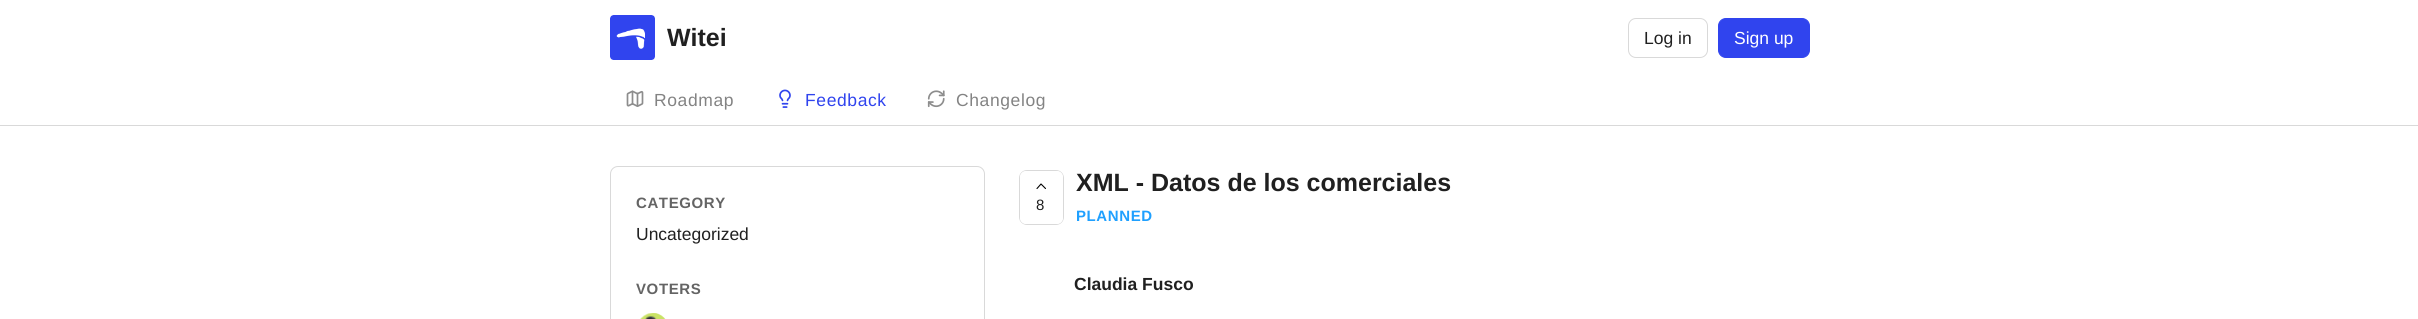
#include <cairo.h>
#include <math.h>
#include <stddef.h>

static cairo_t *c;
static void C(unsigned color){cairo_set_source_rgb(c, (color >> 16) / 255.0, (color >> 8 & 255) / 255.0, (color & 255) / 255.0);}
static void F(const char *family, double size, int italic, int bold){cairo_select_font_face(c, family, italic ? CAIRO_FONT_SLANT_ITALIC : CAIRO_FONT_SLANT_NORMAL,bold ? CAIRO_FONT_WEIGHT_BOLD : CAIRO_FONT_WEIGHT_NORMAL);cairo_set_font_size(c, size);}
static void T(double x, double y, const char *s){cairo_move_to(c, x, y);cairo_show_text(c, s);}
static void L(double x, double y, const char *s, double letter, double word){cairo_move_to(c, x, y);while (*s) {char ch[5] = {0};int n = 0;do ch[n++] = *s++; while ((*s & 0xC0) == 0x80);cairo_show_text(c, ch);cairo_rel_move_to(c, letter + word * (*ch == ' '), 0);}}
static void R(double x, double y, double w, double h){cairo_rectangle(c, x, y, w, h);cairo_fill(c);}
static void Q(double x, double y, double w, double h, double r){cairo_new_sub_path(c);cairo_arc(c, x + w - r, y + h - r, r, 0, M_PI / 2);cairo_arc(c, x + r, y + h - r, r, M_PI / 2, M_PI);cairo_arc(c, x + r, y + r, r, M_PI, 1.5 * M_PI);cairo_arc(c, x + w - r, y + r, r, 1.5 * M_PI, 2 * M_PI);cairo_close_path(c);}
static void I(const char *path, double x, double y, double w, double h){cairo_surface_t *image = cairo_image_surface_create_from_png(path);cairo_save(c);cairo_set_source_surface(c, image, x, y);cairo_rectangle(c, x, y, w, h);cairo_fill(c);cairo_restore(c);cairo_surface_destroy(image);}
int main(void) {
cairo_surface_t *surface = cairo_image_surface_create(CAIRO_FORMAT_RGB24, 2418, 319);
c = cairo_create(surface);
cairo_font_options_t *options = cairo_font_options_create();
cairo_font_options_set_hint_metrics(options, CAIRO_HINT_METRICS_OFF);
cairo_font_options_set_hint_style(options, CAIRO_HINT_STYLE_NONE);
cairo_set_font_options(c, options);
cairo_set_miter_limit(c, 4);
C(0xffffff);
cairo_paint(c);
C(0xd9d9d9);
R(0,125,2418,1);
I("1.png",610,15,45,45);
F("Liberation Sans",25,0,1);
C(0x202020);
T(667,46,"Witei");
Q(1628.5,18.5,79,39,7.5);
C(0xd9d9d9);
cairo_set_line_width(c,1);
cairo_stroke(c);
F("Liberation Sans",17.5,0,0);
C(0x202020);
T(1644,44,"Log in");
C(0x3044ee);
Q(1718.5,18.5,91,39,7.5);
cairo_fill_preserve(c);
cairo_stroke(c);
C(0xffffff);
T(1734,44,"Sign up");
I("2.png",626,90,18,17);
C(0x838383);
L(654,106,"Roadmap",.6,0);
I("3.png",779,89,12,19);
C(0x3044ee);
L(805,106,"Feedback",.6,0);
I("4.png",927,90,18,18);
C(0x838383);
L(956,106,"Changelog",.6,0);
Q(610.5,166.5,374,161,7.5);
C(0xd9d9d9);
cairo_stroke(c);
F("Liberation Sans",15,0,1);
C(0x646464);
L(636,208,"CATEGORY",.6,0);
F("Liberation Sans",17.5,0,0);
C(0x202020);
T(636,240,"Uncategorized");
F("Liberation Sans",15,0,1);
C(0x646464);
L(636,294,"VOTERS",.6,0);
I("5.png",640,313,26,6);
Q(1019.5,170.5,44,54,7.5);
C(0xd9d9d9);
cairo_stroke(c);
C(0xffffff);
Q(1020,171,43,53,6);
cairo_fill(c);
cairo_new_path(c);
cairo_move_to(c,1045.5,188.5);
cairo_line_to(c,1041,184);
cairo_line_to(c,1037,188.5);
C(0x000000);
cairo_set_line_width(c,1.1);
cairo_set_line_cap(c,CAIRO_LINE_CAP_ROUND);
cairo_set_line_join(c,CAIRO_LINE_JOIN_ROUND);
cairo_stroke(c);
F("Liberation Sans",15,0,0);
C(0x202020);
T(1036,210,"8");
F("Liberation Sans",25,0,1);
T(1076,191,"XML - Datos de los comerciales");
F("Liberation Sans",15,0,1);
C(0x1fa0ff);
L(1076,221,"PLANNED",.6,0);
F("Liberation Sans",17.5,0,1);
C(0x202020);
T(1074,290,"Claudia Fusco");
cairo_surface_write_to_png(surface, "o.png");
cairo_font_options_destroy(options);
cairo_destroy(c);
cairo_surface_destroy(surface);
return 0;
}
